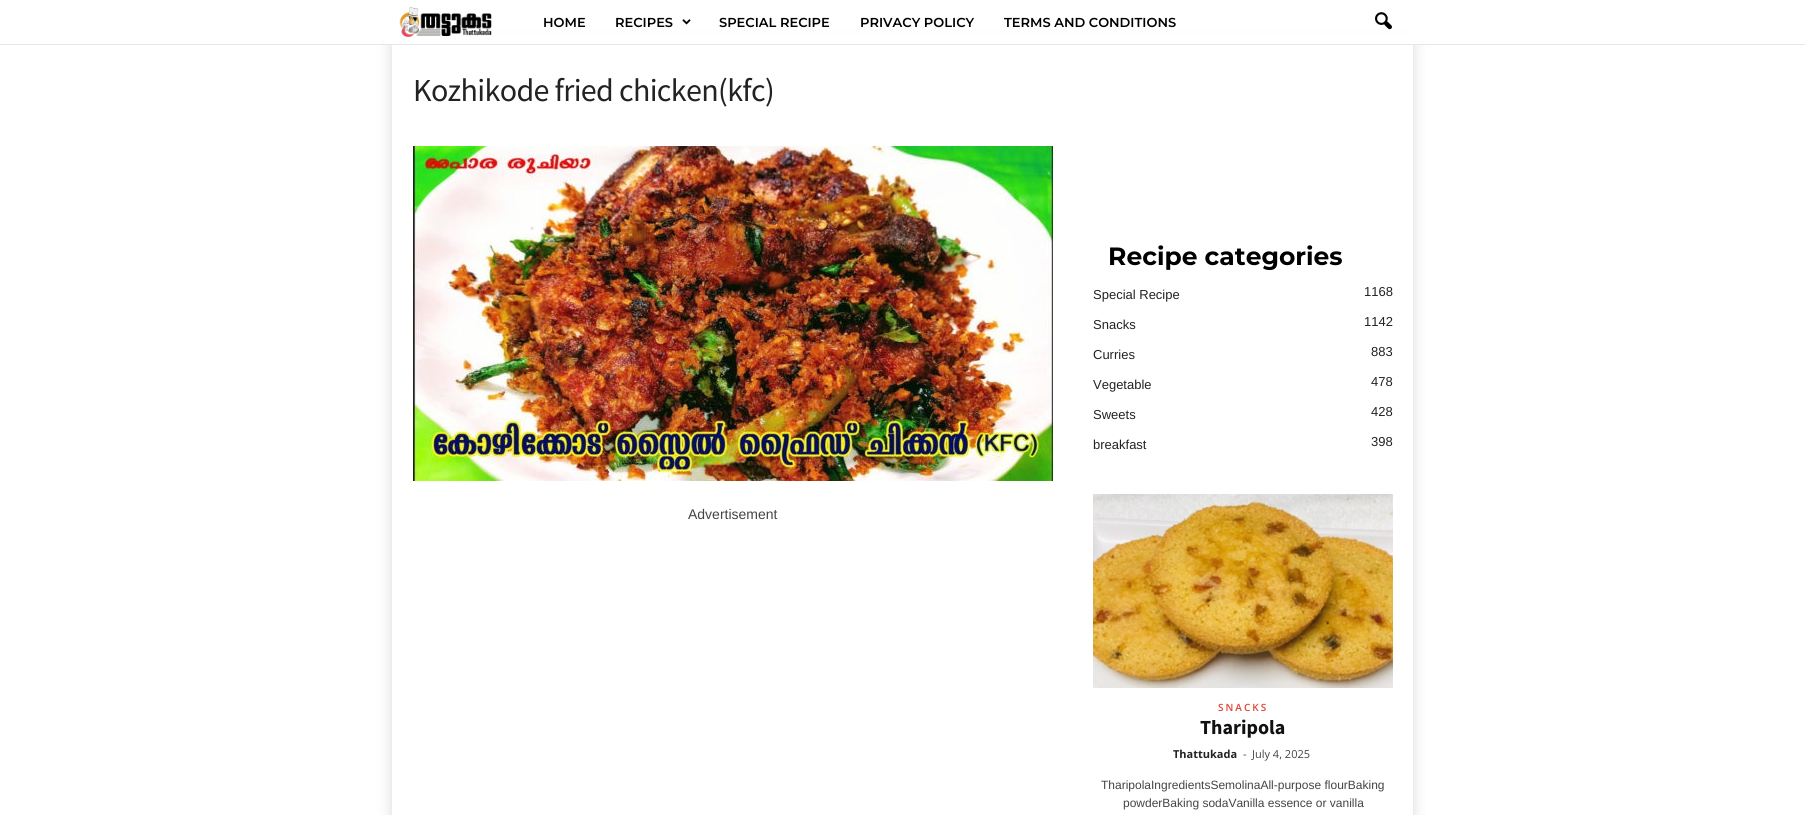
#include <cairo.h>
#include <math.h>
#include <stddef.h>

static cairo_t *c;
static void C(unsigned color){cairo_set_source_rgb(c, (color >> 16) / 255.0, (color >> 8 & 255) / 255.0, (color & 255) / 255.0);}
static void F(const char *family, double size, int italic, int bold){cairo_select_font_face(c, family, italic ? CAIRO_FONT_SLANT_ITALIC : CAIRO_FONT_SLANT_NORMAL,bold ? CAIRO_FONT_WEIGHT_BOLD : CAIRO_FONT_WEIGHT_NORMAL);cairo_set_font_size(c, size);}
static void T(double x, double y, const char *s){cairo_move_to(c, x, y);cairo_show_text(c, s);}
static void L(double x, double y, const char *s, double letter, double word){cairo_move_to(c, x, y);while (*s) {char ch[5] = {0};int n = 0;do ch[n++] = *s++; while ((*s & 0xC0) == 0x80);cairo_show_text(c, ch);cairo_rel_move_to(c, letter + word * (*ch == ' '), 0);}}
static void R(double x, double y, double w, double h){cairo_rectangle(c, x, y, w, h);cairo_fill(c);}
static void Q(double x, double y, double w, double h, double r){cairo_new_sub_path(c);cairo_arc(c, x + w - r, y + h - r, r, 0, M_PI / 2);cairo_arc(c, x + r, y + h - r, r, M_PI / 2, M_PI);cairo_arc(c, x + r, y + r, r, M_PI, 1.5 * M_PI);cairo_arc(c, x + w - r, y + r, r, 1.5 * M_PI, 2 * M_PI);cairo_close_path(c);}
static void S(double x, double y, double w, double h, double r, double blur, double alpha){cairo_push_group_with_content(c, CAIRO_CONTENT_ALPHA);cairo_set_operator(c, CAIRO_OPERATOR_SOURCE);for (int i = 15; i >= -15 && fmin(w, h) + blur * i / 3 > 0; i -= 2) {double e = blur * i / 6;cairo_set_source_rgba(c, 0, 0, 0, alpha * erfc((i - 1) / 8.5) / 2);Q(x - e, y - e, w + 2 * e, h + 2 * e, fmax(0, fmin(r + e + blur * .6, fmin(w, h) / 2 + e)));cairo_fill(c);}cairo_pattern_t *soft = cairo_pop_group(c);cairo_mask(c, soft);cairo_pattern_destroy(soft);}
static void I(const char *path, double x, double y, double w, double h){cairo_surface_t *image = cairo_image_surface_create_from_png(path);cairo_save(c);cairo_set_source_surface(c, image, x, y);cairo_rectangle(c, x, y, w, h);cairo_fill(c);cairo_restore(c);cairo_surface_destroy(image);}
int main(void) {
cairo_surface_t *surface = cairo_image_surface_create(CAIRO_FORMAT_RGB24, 1805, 815);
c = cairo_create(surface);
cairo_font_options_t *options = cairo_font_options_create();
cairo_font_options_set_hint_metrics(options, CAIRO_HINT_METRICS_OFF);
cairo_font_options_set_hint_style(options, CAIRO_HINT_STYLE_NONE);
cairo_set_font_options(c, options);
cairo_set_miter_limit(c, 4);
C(0xffffff);
cairo_paint(c);
cairo_save(c);
cairo_set_fill_rule(c,CAIRO_FILL_RULE_EVEN_ODD);
cairo_new_path(c);
cairo_move_to(c,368,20);
cairo_line_to(c,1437,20);
cairo_line_to(c,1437,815);
cairo_line_to(c,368,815);
cairo_close_path(c);
cairo_move_to(c,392,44);
cairo_line_to(c,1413,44);
cairo_line_to(c,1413,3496);
cairo_line_to(c,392,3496);
cairo_close_path(c);
cairo_clip(c);
C(0x000000);
S(392,44,1021,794,0,7.5,.15);
cairo_restore(c);
C(0xffffff);
R(384,33,1037,11);
C(0xe6e6e6);
R(0,44,1805,1);
I("1.png",399,7,93,30);
F("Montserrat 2 Thin",13,0,0);
C(0x000000);
T(543,27,"HOME");
T(615,27,"RECIPES");
I("2.png",682,19,9,6);
T(719,27,"SPECIAL RECIPE");
T(860,27,"PRIVACY POLICY");
T(1004,27,"TERMS AND CONDITIONS");
I("3.png",1375,12,17,18);
F("Source Sans Pro",32,0,0);
C(0x222222);
L(413,101,"Kozhikode fried chicken(kfc)",-.65,0);
I("4.png",413,146,640,335);
F("Liberation Sans",14,0,0);
C(0x444444);
T(688,519,"Advertisement");
F("Montserrat Thin",25,0,0);
C(0x000000);
T(1108,265,"Recipe categories");
F("Liberation Sans",13,0,0);
C(0x222222);
T(1093,299,"Special Recipe");
T(1364,296,"1168");
T(1093,329,"Snacks");
T(1364,326,"1142");
T(1093,359,"Curries");
T(1371,356,"883");
T(1093,389,"Vegetable");
T(1371,386,"478");
T(1093,419,"Sweets");
T(1371,416,"428");
T(1093,449,"breakfast");
T(1371,446,"398");
I("5.png",1093,494,300,194);
F("Open Sans SemiBold",10,0,0);
C(0xe24234);
L(1218,711,"SNACKS",2,0);
F("Source Sans Pro",20,0,1);
C(0x111111);
T(1200,734,"Tharipola");
F("Open Sans",11,0,1);
C(0x222222);
T(1173,758,"Thattukada");
F("Open Sans",11,0,0);
C(0x444444);
T(1243,758,"-");
T(1252,758,"July 4, 2025");
F("Liberation Sans",12,0,0);
T(1101,789,"TharipolaIngredientsSemolinaAll-purpose flourBaking");
T(1123,807,"powderBaking sodaVanilla essence or vanilla");
cairo_surface_write_to_png(surface, "o.png");
cairo_font_options_destroy(options);
cairo_destroy(c);
cairo_surface_destroy(surface);
return 0;
}
